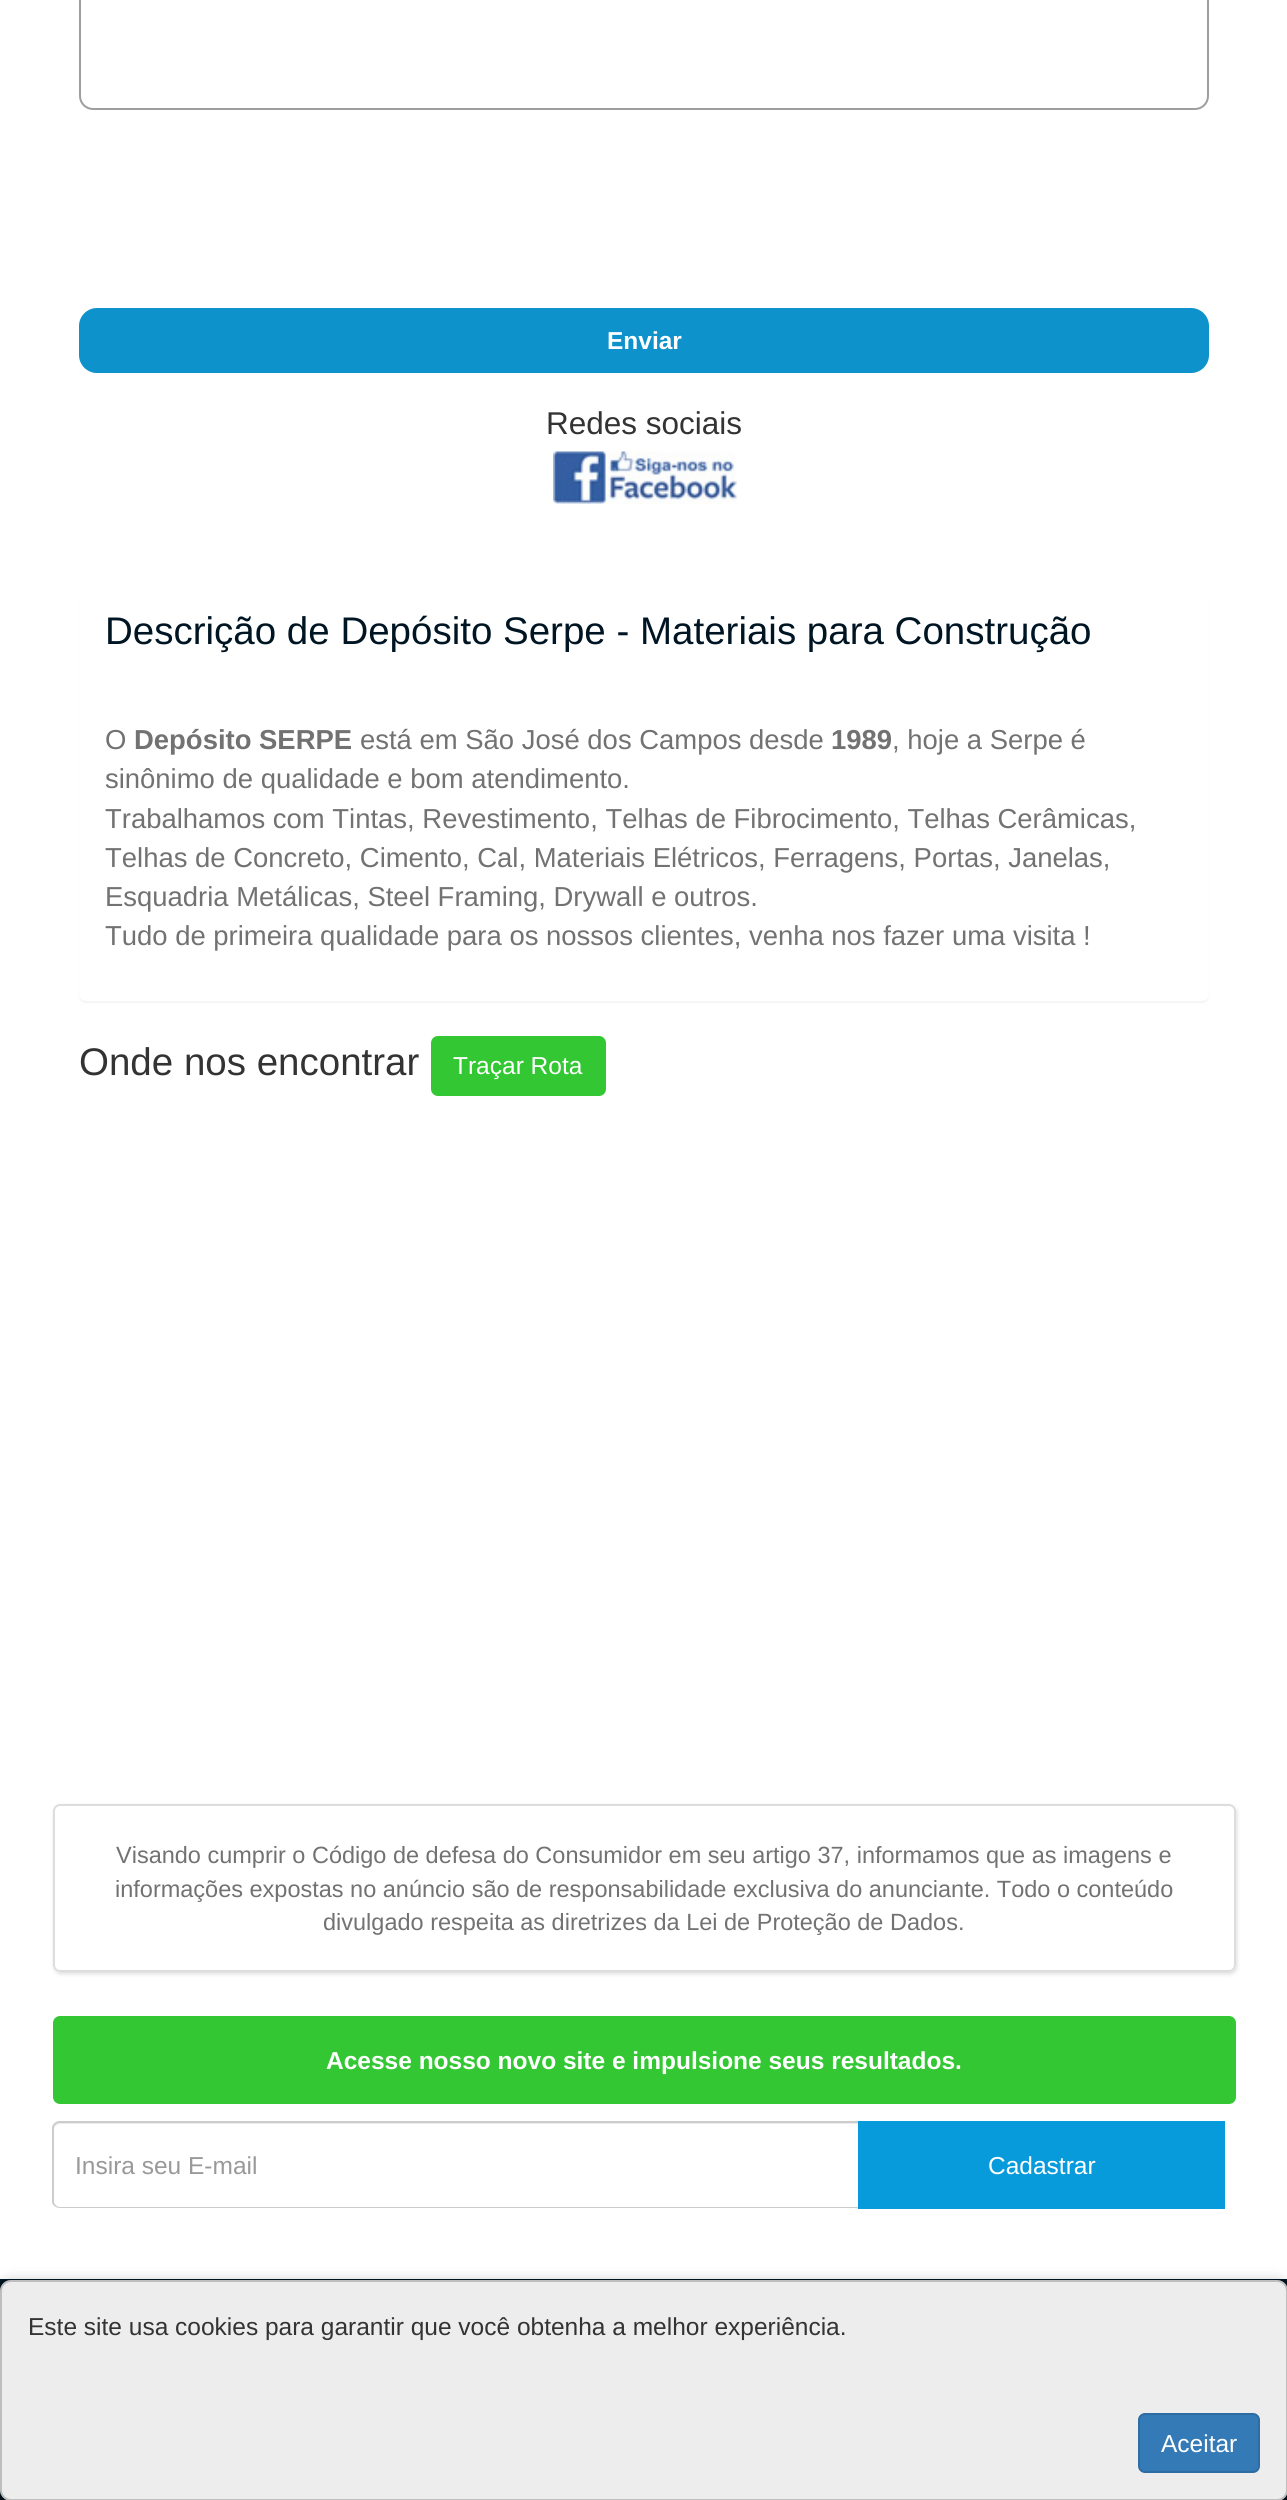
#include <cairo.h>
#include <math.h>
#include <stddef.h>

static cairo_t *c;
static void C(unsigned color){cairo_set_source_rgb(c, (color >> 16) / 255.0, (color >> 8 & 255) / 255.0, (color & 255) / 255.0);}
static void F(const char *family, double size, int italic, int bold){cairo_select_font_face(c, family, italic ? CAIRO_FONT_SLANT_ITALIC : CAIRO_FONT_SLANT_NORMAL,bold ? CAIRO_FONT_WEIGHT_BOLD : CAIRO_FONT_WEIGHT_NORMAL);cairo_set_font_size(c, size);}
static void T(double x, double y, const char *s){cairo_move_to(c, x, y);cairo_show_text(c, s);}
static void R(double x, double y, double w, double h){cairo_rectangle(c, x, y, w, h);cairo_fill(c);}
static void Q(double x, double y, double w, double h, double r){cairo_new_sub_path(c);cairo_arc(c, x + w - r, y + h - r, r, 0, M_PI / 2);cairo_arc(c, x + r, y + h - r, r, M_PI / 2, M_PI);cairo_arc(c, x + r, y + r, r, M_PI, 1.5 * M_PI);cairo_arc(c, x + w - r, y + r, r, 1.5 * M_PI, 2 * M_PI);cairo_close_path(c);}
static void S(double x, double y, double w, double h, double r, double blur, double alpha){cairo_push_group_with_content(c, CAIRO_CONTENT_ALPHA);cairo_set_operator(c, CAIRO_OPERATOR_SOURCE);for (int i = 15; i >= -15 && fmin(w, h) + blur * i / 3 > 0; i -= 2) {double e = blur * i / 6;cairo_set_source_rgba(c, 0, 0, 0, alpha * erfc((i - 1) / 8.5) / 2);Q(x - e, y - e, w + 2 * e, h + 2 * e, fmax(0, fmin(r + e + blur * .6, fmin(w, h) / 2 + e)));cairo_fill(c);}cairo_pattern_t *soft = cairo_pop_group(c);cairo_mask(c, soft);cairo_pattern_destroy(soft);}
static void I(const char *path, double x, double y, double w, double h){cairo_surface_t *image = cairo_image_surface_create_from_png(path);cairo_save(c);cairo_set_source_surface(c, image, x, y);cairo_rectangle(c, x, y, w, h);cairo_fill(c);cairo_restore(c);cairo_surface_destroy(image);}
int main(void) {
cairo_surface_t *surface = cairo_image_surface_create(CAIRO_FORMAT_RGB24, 1287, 2500);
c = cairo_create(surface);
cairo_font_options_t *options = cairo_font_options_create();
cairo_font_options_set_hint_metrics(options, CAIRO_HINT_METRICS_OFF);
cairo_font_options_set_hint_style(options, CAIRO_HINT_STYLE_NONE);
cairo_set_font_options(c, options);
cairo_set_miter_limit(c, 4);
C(0xffffff);
cairo_paint(c);
Q(80,-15,1128,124,13);
C(0x9e9e9e);
cairo_stroke(c);
C(0x0d92cc);
Q(80,309,1128,63,17);
cairo_fill_preserve(c);
cairo_stroke(c);
F("Liberation Sans",24.5,0,1);
C(0xffffff);
T(607,349,"Enviar");
F("Liberation Sans",31.5,0,0);
C(0x333333);
T(546,434,"Redes sociais");
I("1.png",553,451,184,53);
C(0x000000);
S(79,595,1130,408,7,1,.05);
C(0xffffff);
Q(79,593,1130,408,7);
cairo_fill(c);
F("Liberation Sans",38.5,0,0);
C(0x001523);
T(105,644,"Descrição de Depósito Serpe - Materiais para Construção");
F("Liberation Sans",27.45,0,0);
C(0x727272);
T(105,749,"O");
F("Liberation Sans",27.45,0,1);
T(134,749,"Depósito SERPE");
F("Liberation Sans",27.45,0,0);
T(360,749,"está em São José dos Campos desde");
F("Liberation Sans",27.45,0,1);
T(831,749,"1989");
F("Liberation Sans",27.45,0,0);
T(892,749,", hoje a Serpe é");
T(105,788,"sinônimo de qualidade e bom atendimento.");
T(105,828,"Trabalhamos com Tintas, Revestimento, Telhas de Fibrocimento, Telhas Cerâmicas,");
T(105,867,"Telhas de Concreto, Cimento, Cal, Materiais Elétricos, Ferragens, Portas, Janelas,");
T(105,906,"Esquadria Metálicas, Steel Framing, Drywall e outros.");
T(105,945,"Tudo de primeira qualidade para os nossos clientes, venha nos fazer uma visita !");
F("Liberation Sans",38.5,0,0);
C(0x333333);
T(79,1075,"Onde nos encontrar");
C(0x33c833);
Q(432,1037,173,58,6);
cairo_fill_preserve(c);
cairo_stroke(c);
F("Liberation Sans",24.5,0,0);
C(0xffffff);
T(453,1074,"Traçar Rota");
cairo_save(c);
cairo_set_fill_rule(c,CAIRO_FILL_RULE_EVEN_ODD);
cairo_new_path(c);
cairo_move_to(c,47,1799);
cairo_line_to(c,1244,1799);
cairo_line_to(c,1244,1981);
cairo_line_to(c,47,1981);
cairo_close_path(c);
cairo_move_to(c,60,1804);
cairo_line_to(c,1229,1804);
cairo_curve_to(c,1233,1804,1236,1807,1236,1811);
cairo_line_to(c,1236,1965);
cairo_curve_to(c,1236,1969,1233,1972,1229,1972);
cairo_line_to(c,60,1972);
cairo_curve_to(c,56,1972,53,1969,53,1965);
cairo_line_to(c,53,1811);
cairo_curve_to(c,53,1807,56,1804,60,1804);
cairo_close_path(c);
cairo_clip(c);
C(0xdddddd);
S(54,1806,1183,168,7,2,1);
cairo_restore(c);
Q(54,1805,1181,166,6);
C(0xdddddd);
cairo_stroke(c);
F("Liberation Sans",23.5,0,0);
C(0x727272);
T(116,1863,"Visando cumprir o Código de defesa do Consumidor em seu artigo 37, informamos que as imagens e");
T(115,1897,"informações expostas no anúncio são de responsabilidade exclusiva do anunciante. Todo o conteúdo");
T(323,1930,"divulgado respeita as diretrizes da Lei de Proteção de Dados.");
C(0x33c833);
Q(54,2017,1181,86,6);
cairo_fill_preserve(c);
cairo_stroke(c);
F("Liberation Sans",24.5,0,1);
C(0xffffff);
T(326,2069,"Acesse nosso novo site e impulsione seus resultados.");
C(0xececec);
cairo_new_path(c);
cairo_move_to(c,60,2124);
cairo_line_to(c,868,2124);
cairo_line_to(c,868,2123);
cairo_line_to(c,59,2123);
cairo_curve_to(c,55,2123,54,2127,54,2130);
cairo_curve_to(c,54,2127,57,2124,60,2124);
cairo_close_path(c);
cairo_fill(c);
C(0xcccccc);
cairo_set_fill_rule(c,CAIRO_FILL_RULE_EVEN_ODD);
cairo_new_path(c);
cairo_move_to(c,60,2121);
cairo_line_to(c,868,2121);
cairo_line_to(c,868,2208);
cairo_line_to(c,60,2208);
cairo_curve_to(c,56,2208,52,2205,52,2202);
cairo_line_to(c,52,2128);
cairo_curve_to(c,52,2124,56,2121,60,2121);
cairo_close_path(c);
cairo_move_to(c,60,2123);
cairo_line_to(c,868,2123);
cairo_line_to(c,868,2207);
cairo_line_to(c,60,2207);
cairo_curve_to(c,57,2207,54,2204,54,2202);
cairo_line_to(c,54,2128);
cairo_curve_to(c,54,2125,57,2123,60,2123);
cairo_close_path(c);
cairo_fill(c);
F("Liberation Sans",24.5,0,0);
C(0x999999);
T(75,2174,"Insira seu E-mail");
C(0x089bdb);
R(858,2121,367,88);
C(0xffffff);
T(988,2174,"Cadastrar");
C(0x001523);
R(0,2279,1287,221);
C(0x000000);
S(0,2286,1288,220,11,8,.5);
C(0xededed);
Q(0,2280,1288,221,11);
cairo_fill(c);
Q(1,2281,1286,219,10);
cairo_set_source_rgba(c,0,0,0,0.2);
cairo_stroke(c);
C(0x333333);
T(28,2335,"Este site usa cookies para garantir que você obtenha a melhor experiência.");
C(0x337ab7);
Q(1139,2414,120,58,6);
cairo_fill_preserve(c);
C(0x2e6da4);
cairo_stroke(c);
C(0xffffff);
T(1161,2452,"Aceitar");
cairo_surface_write_to_png(surface, "o.png");
cairo_font_options_destroy(options);
cairo_destroy(c);
cairo_surface_destroy(surface);
return 0;
}
